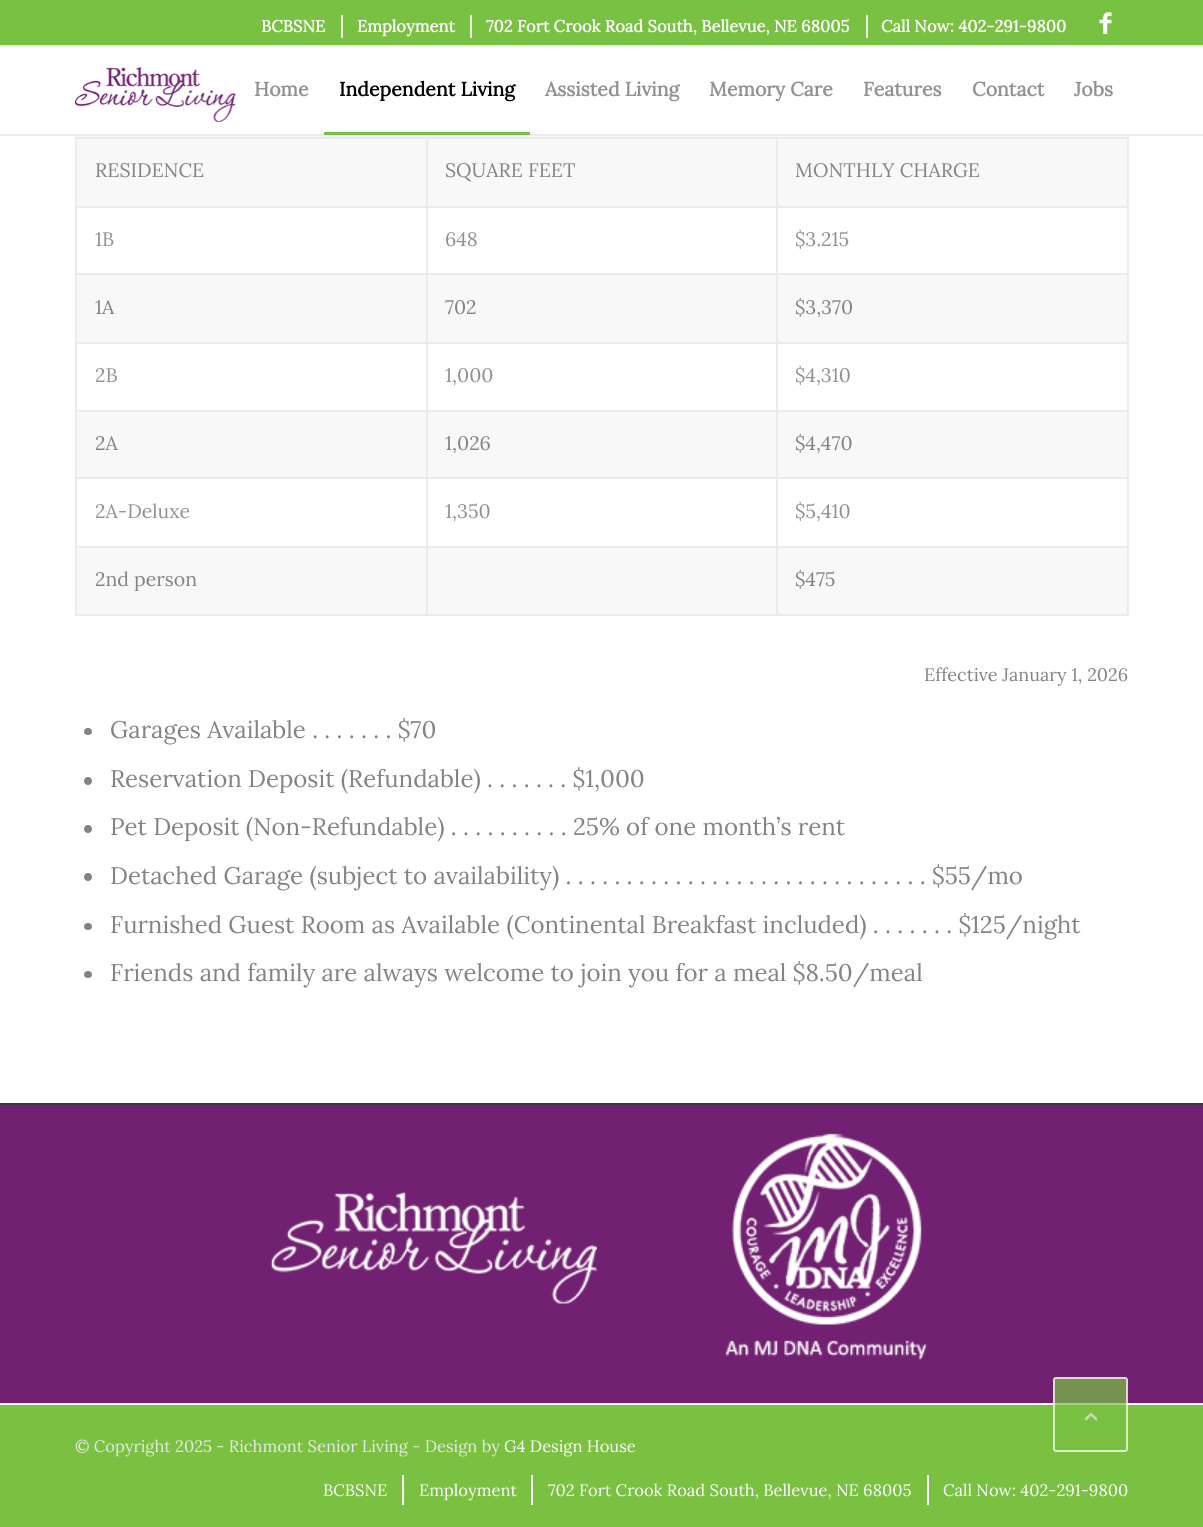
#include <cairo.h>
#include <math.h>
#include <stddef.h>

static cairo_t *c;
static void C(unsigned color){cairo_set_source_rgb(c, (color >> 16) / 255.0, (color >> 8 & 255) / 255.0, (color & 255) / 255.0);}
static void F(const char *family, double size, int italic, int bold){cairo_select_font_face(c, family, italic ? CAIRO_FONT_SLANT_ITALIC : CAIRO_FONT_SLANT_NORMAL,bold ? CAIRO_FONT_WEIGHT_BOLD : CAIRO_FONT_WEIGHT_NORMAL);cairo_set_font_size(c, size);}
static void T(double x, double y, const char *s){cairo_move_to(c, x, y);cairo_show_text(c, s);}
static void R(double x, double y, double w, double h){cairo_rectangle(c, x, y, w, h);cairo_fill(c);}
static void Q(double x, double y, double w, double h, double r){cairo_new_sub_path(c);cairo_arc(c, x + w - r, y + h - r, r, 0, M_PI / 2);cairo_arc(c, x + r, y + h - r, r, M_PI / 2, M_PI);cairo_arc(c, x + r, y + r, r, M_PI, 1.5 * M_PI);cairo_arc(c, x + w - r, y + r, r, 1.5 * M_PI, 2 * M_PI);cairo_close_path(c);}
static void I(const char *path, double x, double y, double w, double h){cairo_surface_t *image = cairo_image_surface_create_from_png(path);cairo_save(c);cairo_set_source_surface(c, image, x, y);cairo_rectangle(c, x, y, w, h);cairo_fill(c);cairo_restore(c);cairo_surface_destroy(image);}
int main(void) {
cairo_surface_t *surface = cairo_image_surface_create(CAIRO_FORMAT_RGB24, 1203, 1527);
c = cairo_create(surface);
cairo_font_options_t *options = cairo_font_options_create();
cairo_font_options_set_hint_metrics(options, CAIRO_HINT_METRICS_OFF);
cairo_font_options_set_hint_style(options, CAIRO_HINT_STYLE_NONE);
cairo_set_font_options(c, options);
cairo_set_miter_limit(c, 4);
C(0xffffff);
cairo_paint(c);
C(0x79c142);
R(0,0,1203,45);
C(0xebebeb);
R(0,45,1203,2);
R(341,15,2,23);
F("Lora",16.5,0,1);
C(0xffffff);
T(261,32,"BCBSNE");
C(0xebebeb);
R(470,15,2,23);
C(0xffffff);
T(357,32,"Employment");
C(0xebebeb);
R(866,15,2,23);
C(0xffffff);
T(486,32,"702 Fort Crook Road South, Bellevue, NE 68005");
T(881,32,"Call Now: 402-291-9800");
I("1.png",1099,12,13,22);
C(0xebebeb);
R(0,134,1203,2);
I("2.png",75,67,161,55);
F("Lora",19.5,0,1);
C(0x919191);
T(254,96,"Home");
C(0x000000);
T(339,96,"Independent Living");
C(0x79c142);
R(324,132,206,3);
C(0x919191);
T(545,96,"Assisted Living");
T(709,96,"Memory Care");
T(863,96,"Features");
T(972,96,"Contact");
T(1074,96,"Jobs");
C(0xf8f8f8);
R(75,136,1053,478);
C(0xebebeb);
R(75,137,1053,2);
R(1127,206,2,409);
R(1127,137,2,70);
C(0xffffff);
R(77,208,1050,65);
R(77,344,1050,66);
R(77,479,1050,67);
C(0xebebeb);
R(776,614,352,2);
R(776,546,2,69);
R(776,546,352,2);
R(776,477,2,71);
R(776,477,352,2);
R(776,410,2,69);
R(776,410,352,2);
R(776,342,2,69);
R(776,342,352,2);
R(776,273,2,71);
R(776,273,352,2);
R(776,206,2,69);
R(776,206,352,2);
R(776,137,2,70);
R(426,614,351,2);
R(426,546,2,69);
R(426,546,351,2);
R(426,477,2,71);
R(426,477,351,2);
R(426,410,2,69);
R(426,410,351,2);
R(426,342,2,69);
R(426,342,351,2);
R(426,273,2,71);
R(426,273,351,2);
R(426,206,2,69);
R(426,206,351,2);
R(426,137,2,70);
R(75,614,353,2);
R(75,546,2,69);
R(75,546,353,2);
R(75,477,2,71);
R(75,477,353,2);
R(75,410,2,69);
R(75,410,353,2);
R(75,342,2,69);
R(75,342,353,2);
R(75,273,2,71);
R(75,273,353,2);
R(75,206,2,69);
R(75,206,353,2);
R(75,137,2,70);
F("Lora",19.5,0,0);
C(0x838383);
T(95,177,"RESIDENCE");
T(445,177,"SQUARE FEET");
T(795,177,"MONTHLY CHARGE");
C(0x919191);
T(95,246,"1B");
T(445,246,"648");
T(795,246,"$3.215");
C(0x838383);
T(95,314,"1A");
T(445,314,"702");
T(795,314,"$3,370");
C(0x919191);
T(95,382,"2B");
T(445,382,"1,000");
T(795,382,"$4,310");
C(0x838383);
T(95,450,"2A");
T(445,450,"1,026");
T(795,450,"$4,470");
C(0x919191);
T(95,518,"2A-Deluxe");
T(445,518,"1,350");
T(795,518,"$5,410");
C(0x838383);
T(95,586,"2nd person");
T(795,586,"$475");
F("Lora",18,0,0);
T(924,681,"Effective January 1, 2026");
Q(84,728,8,7,3.5);
cairo_fill(c);
F("Lora",24,0,0);
T(110,738,"Garages Available . . . . . . . $70");
cairo_new_path(c);
cairo_arc(c,88,781,4,0,2 * M_PI);
cairo_fill(c);
T(110,787,"Reservation Deposit (Refundable) . . . . . . . $1,000");
cairo_new_path(c);
cairo_arc(c,88,829,4,0,2 * M_PI);
cairo_fill(c);
T(110,835,"Pet Deposit (Non-Refundable) . . . . . . . . . . 25% of one month’s rent");
cairo_new_path(c);
cairo_arc(c,88,877,4,0,2 * M_PI);
cairo_fill(c);
T(110,884,"Detached Garage (subject to availability) . . . . . . . . . . . . . . . . . . . . . . . . . . . . . . $55/mo");
Q(84,923,8,7,3.5);
cairo_fill(c);
T(110,933,"Furnished Guest Room as Available (Continental Breakfast included) . . . . . . . $125/night");
Q(84,971,8,7,3.5);
cairo_fill(c);
T(110,981,"Friends and family are always welcome to join you for a meal $8.50/meal");
C(0x722071);
R(0,1105,1203,298);
C(0x35383c);
R(0,1103,1203,2);
I("3.png",271,1192,326,112);
I("4.png",725,1133,203,227);
C(0x7ac142);
R(0,1405,1203,122);
F("Lora",16.5,0,0);
C(0xe8e8e8);
T(75,1452,"© Copyright 2025 - Richmont Senior Living - Design by");
C(0xffffff);
T(504,1452,"G4 Design House");
T(323,1496,"BCBSNE");
R(402,1475,2,30);
T(419,1496,"Employment");
R(531,1475,2,30);
T(548,1496,"702 Fort Crook Road South, Bellevue, NE 68005");
R(927,1475,2,30);
T(943,1496,"Call Now: 402-291-9800");
cairo_set_source_rgba(c,0.478,0.757,0.259,0.7);
Q(1053,1377,75,75,3);
cairo_fill(c);
Q(1054,1378,73,73,2);
cairo_set_source_rgba(c,1,1,1,0.7);
cairo_stroke(c);
I("5.png",1085,1413,12,8);
cairo_surface_write_to_png(surface, "o.png");
cairo_font_options_destroy(options);
cairo_destroy(c);
cairo_surface_destroy(surface);
return 0;
}
